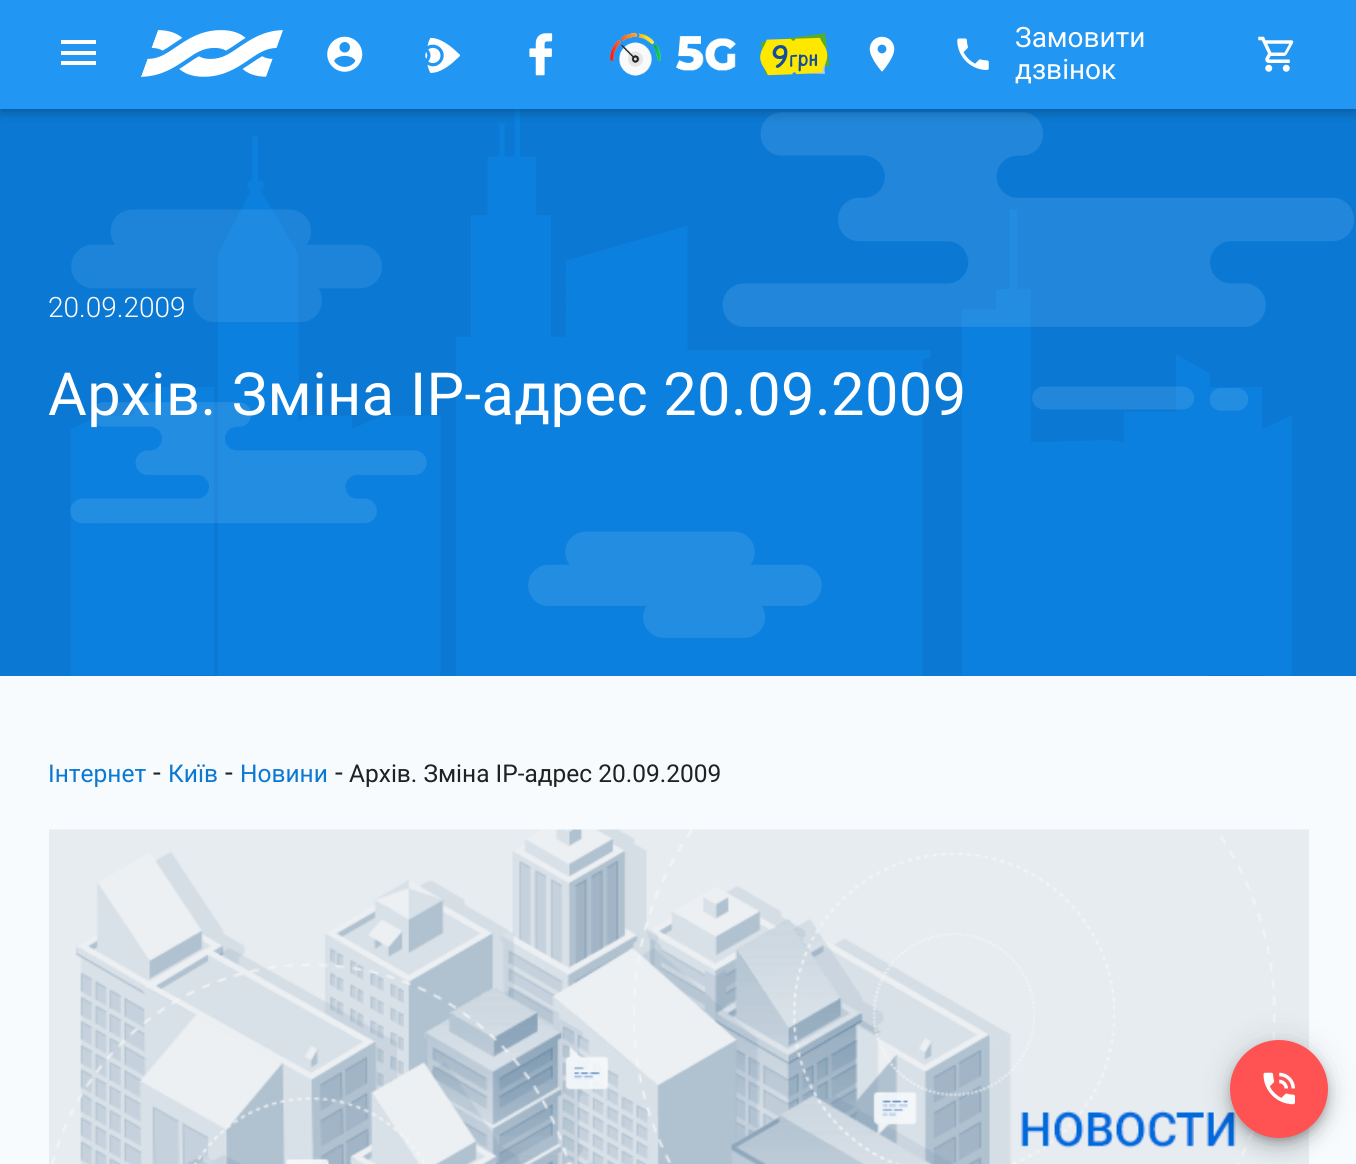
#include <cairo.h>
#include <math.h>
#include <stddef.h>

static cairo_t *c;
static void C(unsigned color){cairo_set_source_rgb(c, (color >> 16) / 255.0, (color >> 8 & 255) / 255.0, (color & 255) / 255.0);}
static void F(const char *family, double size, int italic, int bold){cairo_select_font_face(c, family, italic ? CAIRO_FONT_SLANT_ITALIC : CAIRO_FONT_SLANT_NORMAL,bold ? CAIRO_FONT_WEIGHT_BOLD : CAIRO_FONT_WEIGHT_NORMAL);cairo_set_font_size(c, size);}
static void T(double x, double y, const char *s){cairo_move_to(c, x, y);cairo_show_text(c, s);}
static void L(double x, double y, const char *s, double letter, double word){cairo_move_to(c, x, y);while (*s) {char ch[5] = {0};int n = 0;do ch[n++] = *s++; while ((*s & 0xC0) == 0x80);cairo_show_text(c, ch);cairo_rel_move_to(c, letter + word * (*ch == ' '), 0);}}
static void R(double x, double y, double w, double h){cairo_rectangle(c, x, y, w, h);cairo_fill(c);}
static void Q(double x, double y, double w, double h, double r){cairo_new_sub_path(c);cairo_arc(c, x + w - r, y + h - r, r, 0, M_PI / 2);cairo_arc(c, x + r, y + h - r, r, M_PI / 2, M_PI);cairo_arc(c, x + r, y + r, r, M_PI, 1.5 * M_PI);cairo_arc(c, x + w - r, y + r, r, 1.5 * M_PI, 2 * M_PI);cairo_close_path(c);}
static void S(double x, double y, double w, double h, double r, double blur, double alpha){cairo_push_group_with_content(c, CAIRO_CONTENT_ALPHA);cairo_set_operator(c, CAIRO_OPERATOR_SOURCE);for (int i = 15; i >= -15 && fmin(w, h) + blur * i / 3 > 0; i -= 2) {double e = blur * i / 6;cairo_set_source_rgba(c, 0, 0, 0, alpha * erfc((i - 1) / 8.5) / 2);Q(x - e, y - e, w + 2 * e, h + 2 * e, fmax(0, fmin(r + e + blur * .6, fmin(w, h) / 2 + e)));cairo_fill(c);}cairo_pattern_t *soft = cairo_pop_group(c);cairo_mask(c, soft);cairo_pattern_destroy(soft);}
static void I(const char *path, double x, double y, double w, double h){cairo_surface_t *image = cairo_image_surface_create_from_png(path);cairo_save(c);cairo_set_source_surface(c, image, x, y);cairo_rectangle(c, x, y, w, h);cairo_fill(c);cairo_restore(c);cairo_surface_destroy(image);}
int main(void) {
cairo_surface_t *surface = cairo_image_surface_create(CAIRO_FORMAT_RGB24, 1356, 1164);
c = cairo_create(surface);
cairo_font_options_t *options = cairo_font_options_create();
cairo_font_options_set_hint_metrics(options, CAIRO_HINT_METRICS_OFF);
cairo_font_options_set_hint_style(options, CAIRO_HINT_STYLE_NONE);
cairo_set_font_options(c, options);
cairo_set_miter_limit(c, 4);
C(0xf7fbfe);
cairo_paint(c);
C(0x0b79d3);
R(0,109,1356,567);
I("10.png",70,109,1284,567);
C(0x000000);
S(0,2,1356,108,0,9,.08);
S(0,7,1356,109,0,4.5,.1);
S(2,5,1353,105,0,3.5,.14);
C(0x2196f3);
R(0,0,1356,109);
C(0xffffff);
R(61,51,35,4);
R(61,40,35,4);
R(61,61,35,4);
I("1.png",141,30,142,47);
I("2.png",327,36,36,36);
I("3.png",425,37,36,36);
I("4.png",529,33,24,43);
I("5.png",609,32,127,44);
I("6.png",760,33,70,43);
I("7.png",869,36,26,36);
I("8.png",957,38,32,32);
F("Roboto",28,0,0);
T(1015,47,"Замовити");
T(1015,79,"дзвінок");
I("9.png",1258,36,36,36);
F("Roboto Light",28,0,0);
T(48,317,"20.09.2009");
F("Roboto",59.5,0,0);
L(48,415,"Архів. Зміна IP-адрес 20.09.2009",.45,0);
F("Roboto",24.5,0,0);
C(0x0b79d3);
T(48,782,"Інтернет");
F("Roboto",28,0,0);
C(0x202121);
T(153,782,"-");
F("Roboto",24.5,0,0);
C(0x0b79d3);
T(168,782,"Київ");
F("Roboto",28,0,0);
C(0x202121);
T(225,782,"-");
F("Roboto",24.5,0,0);
C(0x0b79d3);
T(240,782,"Новини");
F("Roboto",28,0,0);
C(0x202121);
T(335,782,"-");
F("Roboto",24.5,0,0);
T(349,782,"Архів. Зміна IP-адрес 20.09.2009");
I("11.png",49,829,1260,335);
C(0x000000);
S(1230,1041,98,98,49,16,.12);
S(1230,1050,98,98,49,9,.14);
S(1232,1047,95,94,47,4.5,.2);
C(0xff5252);
cairo_arc(c,1279,1089,49,0,2 * M_PI);
cairo_fill(c);
I("12.png",1263,1072,32,33);
cairo_surface_write_to_png(surface, "o.png");
cairo_font_options_destroy(options);
cairo_destroy(c);
cairo_surface_destroy(surface);
return 0;
}
